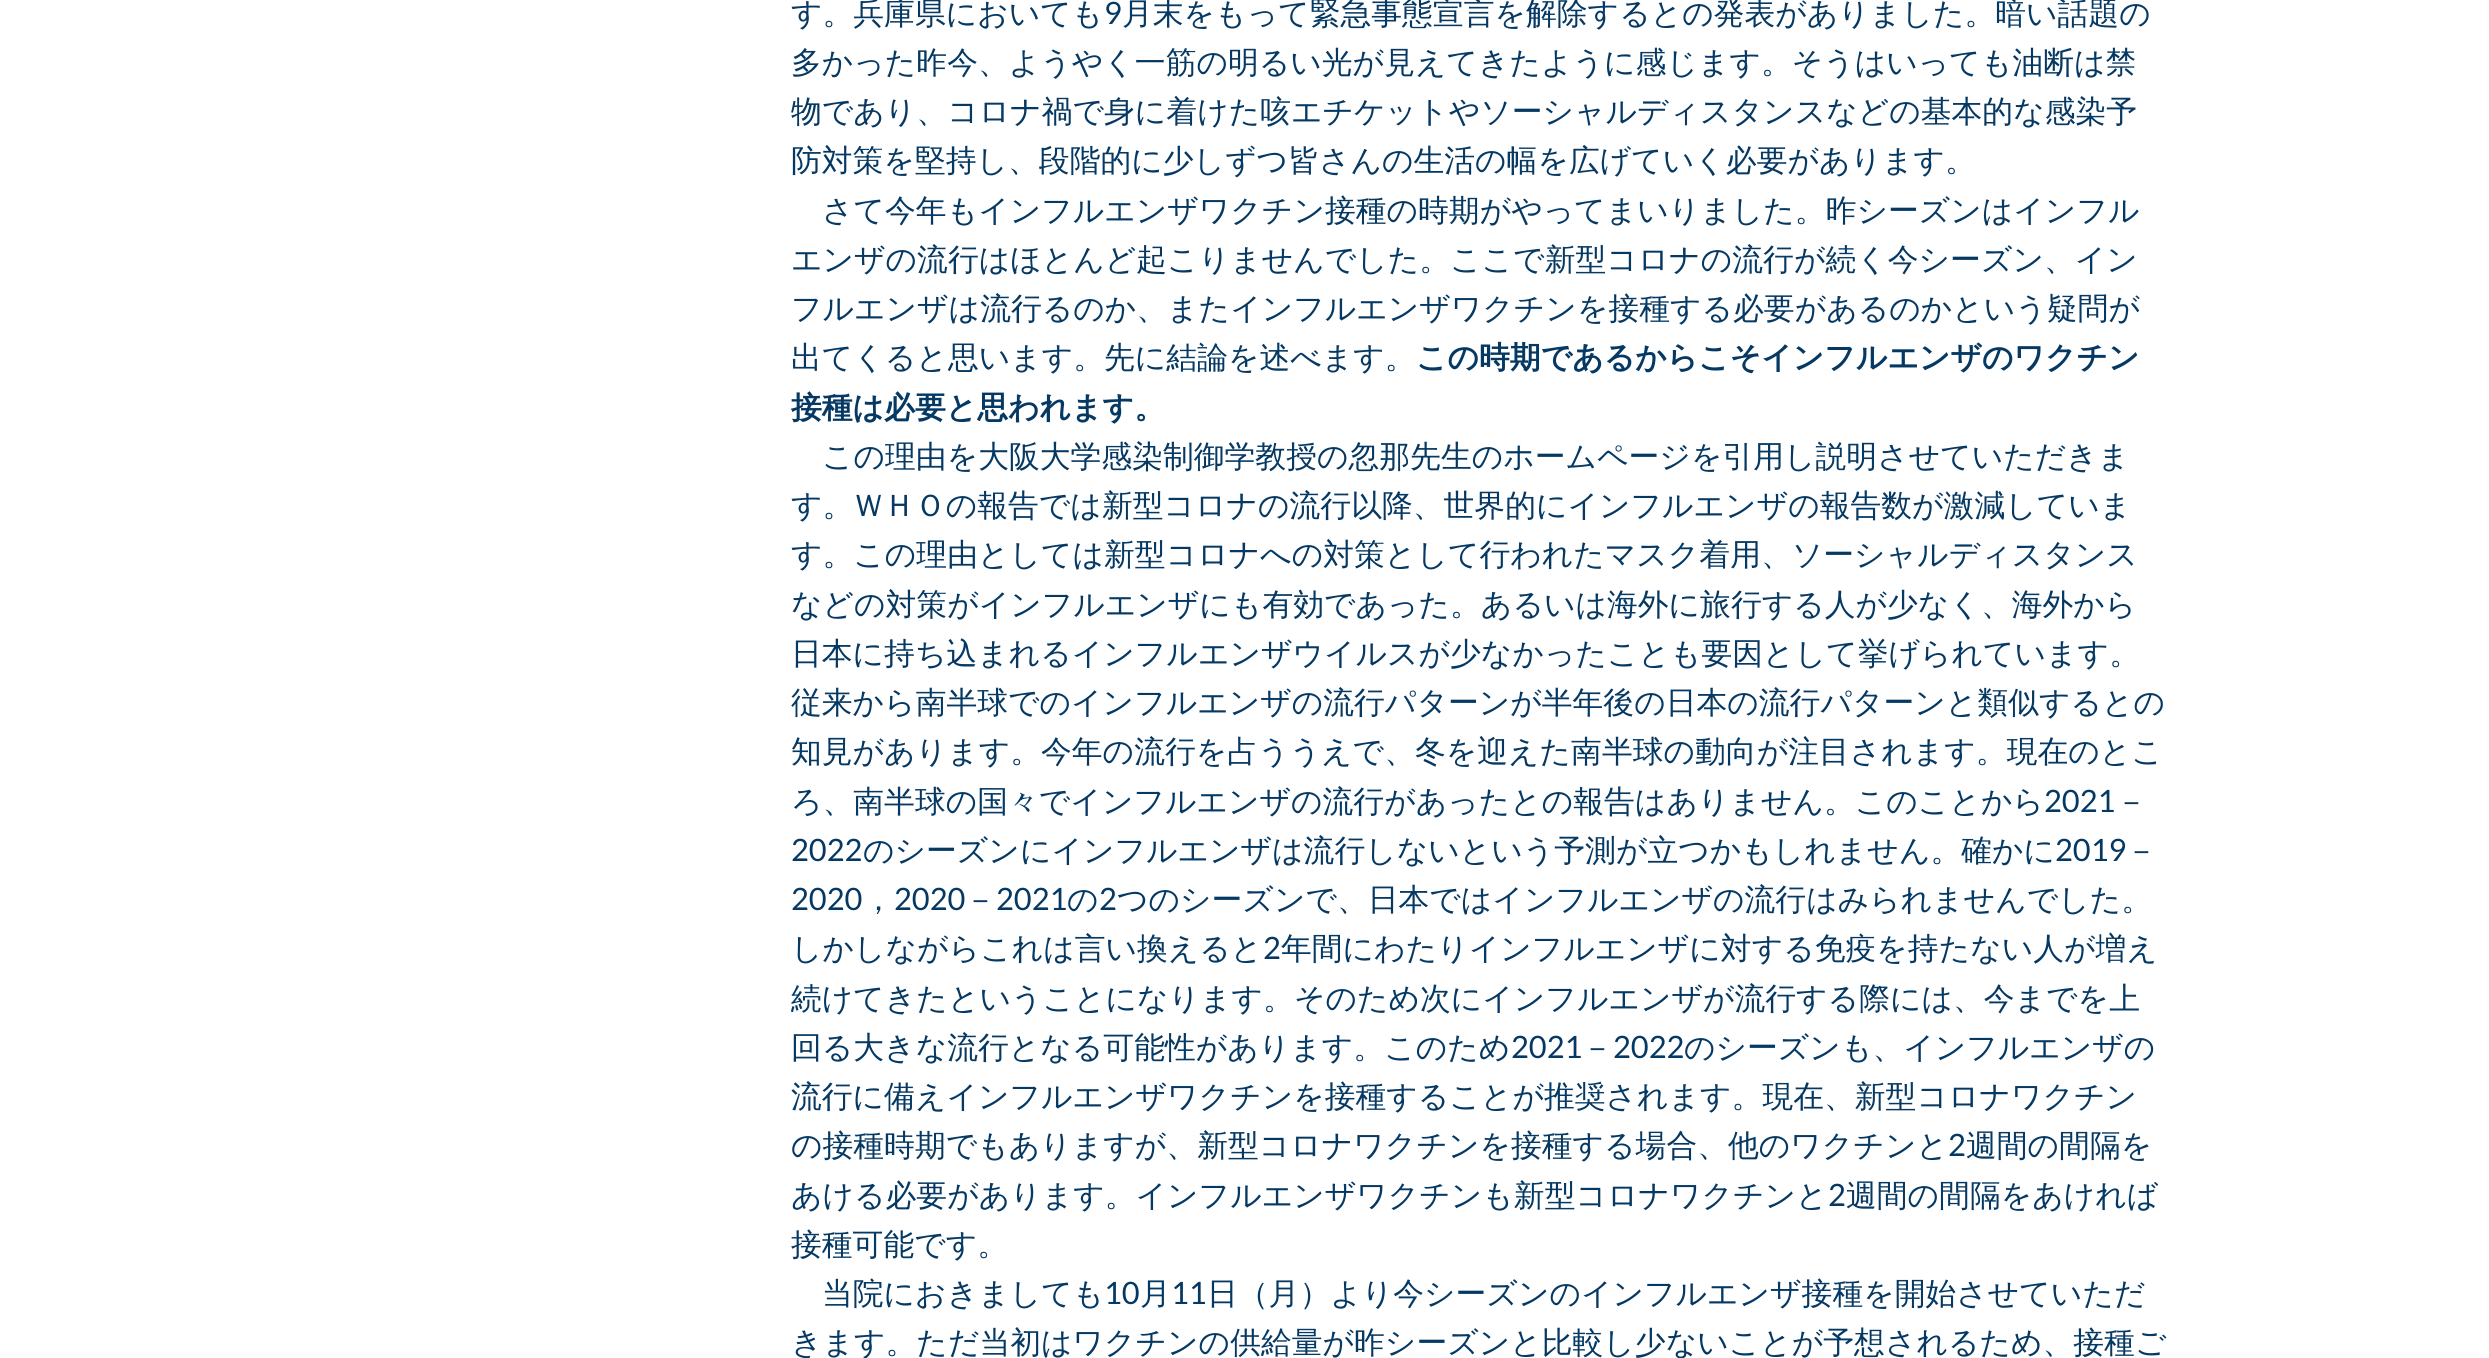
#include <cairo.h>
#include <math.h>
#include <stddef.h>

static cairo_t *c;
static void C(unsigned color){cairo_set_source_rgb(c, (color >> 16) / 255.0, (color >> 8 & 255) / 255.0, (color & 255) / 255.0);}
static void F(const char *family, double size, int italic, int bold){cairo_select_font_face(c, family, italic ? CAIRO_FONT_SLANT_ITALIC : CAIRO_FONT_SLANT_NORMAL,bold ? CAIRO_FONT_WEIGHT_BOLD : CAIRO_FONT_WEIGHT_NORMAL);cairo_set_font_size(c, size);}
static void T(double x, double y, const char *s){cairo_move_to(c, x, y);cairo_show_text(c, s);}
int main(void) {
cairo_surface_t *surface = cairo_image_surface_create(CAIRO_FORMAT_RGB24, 2489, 1358);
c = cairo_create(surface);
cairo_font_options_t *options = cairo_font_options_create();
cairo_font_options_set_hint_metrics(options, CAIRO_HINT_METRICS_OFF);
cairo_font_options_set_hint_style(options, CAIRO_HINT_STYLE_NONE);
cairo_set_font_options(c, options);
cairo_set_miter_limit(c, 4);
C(0xffffff);
cairo_paint(c);
F("WenQuanYi Zen Hei Medium",30.8,0,0);
C(0x053963);
T(791,24,"す。兵庫県においても");
F("Lato",30.8,0,0);
T(1104,24,"9");
F("WenQuanYi Zen Hei Medium",30.8,0,0);
T(1122,24,"月末をもって緊急事態宣言を解除するとの発表がありました。暗い話題の");
T(791,73,"多かった昨今、ようやく一筋の明るい光が見えてきたように感じます。そうはいっても油断は禁");
T(791,122,"物であり、コロナ禍で身に着けた咳エチケットやソーシャルディスタンスなどの基本的な感染予");
T(791,171,"防対策を堅持し、段階的に少しずつ皆さんの生活の幅を広げていく必要があります。");
T(822,221,"さて今年もインフルエンザワクチン接種の時期がやってまいりました。昨シーズンはインフル");
T(791,270,"エンザの流行はほとんど起こりませんでした。ここで新型コロナの流行が続く今シーズン、イン");
T(791,319,"フルエンザは流行るのか、またインフルエンザワクチンを接種する必要があるのかという疑問が");
T(791,368,"出てくると思います。先に結論を述べます。");
F("WenQuanYi Zen Hei",30.8,0,1);
T(1416,368,"この時期であるからこそインフルエンザのワクチン");
T(791,418,"接種は必要と思われます。");
F("WenQuanYi Zen Hei Medium",30.8,0,0);
T(822,467,"この理由を大阪大学感染制御学教授の忽那先生のホームページを引用し説明させていただきま");
T(791,516,"す。ＷＨＯの報告では新型コロナの流行以降、世界的にインフルエンザの報告数が激減していま");
T(791,565,"す。この理由としては新型コロナへの対策として行われたマスク着用、ソーシャルディスタンス");
T(791,615,"などの対策がインフルエンザにも有効であった。あるいは海外に旅行する人が少なく、海外から");
T(791,664,"日本に持ち込まれるインフルエンザウイルスが少なかったことも要因として挙げられています。");
T(791,713,"従来から南半球でのインフルエンザの流行パターンが半年後の日本の流行パターンと類似するとの");
T(791,762,"知見があります。今年の流行を占ううえで、冬を迎えた南半球の動向が注目されます。現在のとこ");
T(791,812,"ろ、南半球の国々でインフルエンザの流行があったとの報告はありません。このことから");
F("Lato",30.8,0,0);
T(2044,812,"2021");
F("WenQuanYi Zen Hei Medium",30.8,0,0);
T(2116,812,"－");
F("Lato",30.8,0,0);
T(791,861,"2022");
F("WenQuanYi Zen Hei Medium",30.8,0,0);
T(863,861,"のシーズンにインフルエンザは流行しないという予測が立つかもしれません。確かに");
F("Lato",30.8,0,0);
T(2055,861,"2019");
F("WenQuanYi Zen Hei Medium",30.8,0,0);
T(2126,861,"－");
F("Lato",30.8,0,0);
T(791,910,"2020");
T(894,910,"2020");
F("WenQuanYi Zen Hei Medium",30.8,0,0);
T(965,910,"－");
F("Lato",30.8,0,0);
T(996,910,"2021");
F("WenQuanYi Zen Hei Medium",30.8,0,0);
T(1067,910,"の");
F("Lato",30.8,0,0);
T(1099,910,"2");
F("WenQuanYi Zen Hei Medium",30.8,0,0);
T(1117,910,"つのシーズンで、日本ではインフルエンザの流行はみられませんでした。");
T(863,910,"，");
T(791,959,"しかしながらこれは言い換えると");
F("Lato",30.8,0,0);
T(1263,959,"2");
F("WenQuanYi Zen Hei Medium",30.8,0,0);
T(1281,959,"年間にわたりインフルエンザに対する免疫を持たない人が増え");
T(791,1009,"続けてきたということになります。そのため次にインフルエンザが流行する際には、今までを上");
T(791,1058,"回る大きな流行となる可能性があります。このため");
F("Lato",30.8,0,0);
T(1511,1058,"2021");
F("WenQuanYi Zen Hei Medium",30.8,0,0);
T(1582,1058,"－");
F("Lato",30.8,0,0);
T(1613,1058,"2022");
F("WenQuanYi Zen Hei Medium",30.8,0,0);
T(1684,1058,"のシーズンも、インフルエンザの");
T(791,1107,"流行に備えインフルエンザワクチンを接種することが推奨されます。現在、新型コロナワクチン");
T(791,1156,"の接種時期でもありますが、新型コロナワクチンを接種する場合、他のワクチンと");
F("Lato",30.8,0,0);
T(1948,1156,"2");
F("WenQuanYi Zen Hei Medium",30.8,0,0);
T(1966,1156,"週間の間隔を");
T(791,1206,"あける必要があります。インフルエンザワクチンも新型コロナワクチンと");
F("Lato",30.8,0,0);
T(1828,1206,"2");
F("WenQuanYi Zen Hei Medium",30.8,0,0);
T(1846,1206,"週間の間隔をあければ");
T(791,1255,"接種可能です。");
T(822,1304,"当院におきましても");
F("Lato",30.8,0,0);
T(1104,1304,"10");
F("WenQuanYi Zen Hei Medium",30.8,0,0);
T(1140,1304,"月");
F("Lato",30.8,0,0);
T(1171,1304,"11");
F("WenQuanYi Zen Hei Medium",30.8,0,0);
T(1207,1304,"日（月）より今シーズンのインフルエンザ接種を開始させていただ");
T(791,1353,"きます。ただ当初はワクチンの供給量が昨シーズンと比較し少ないことが予想されるため、接種ご");
cairo_surface_write_to_png(surface, "o.png");
cairo_font_options_destroy(options);
cairo_destroy(c);
cairo_surface_destroy(surface);
return 0;
}
